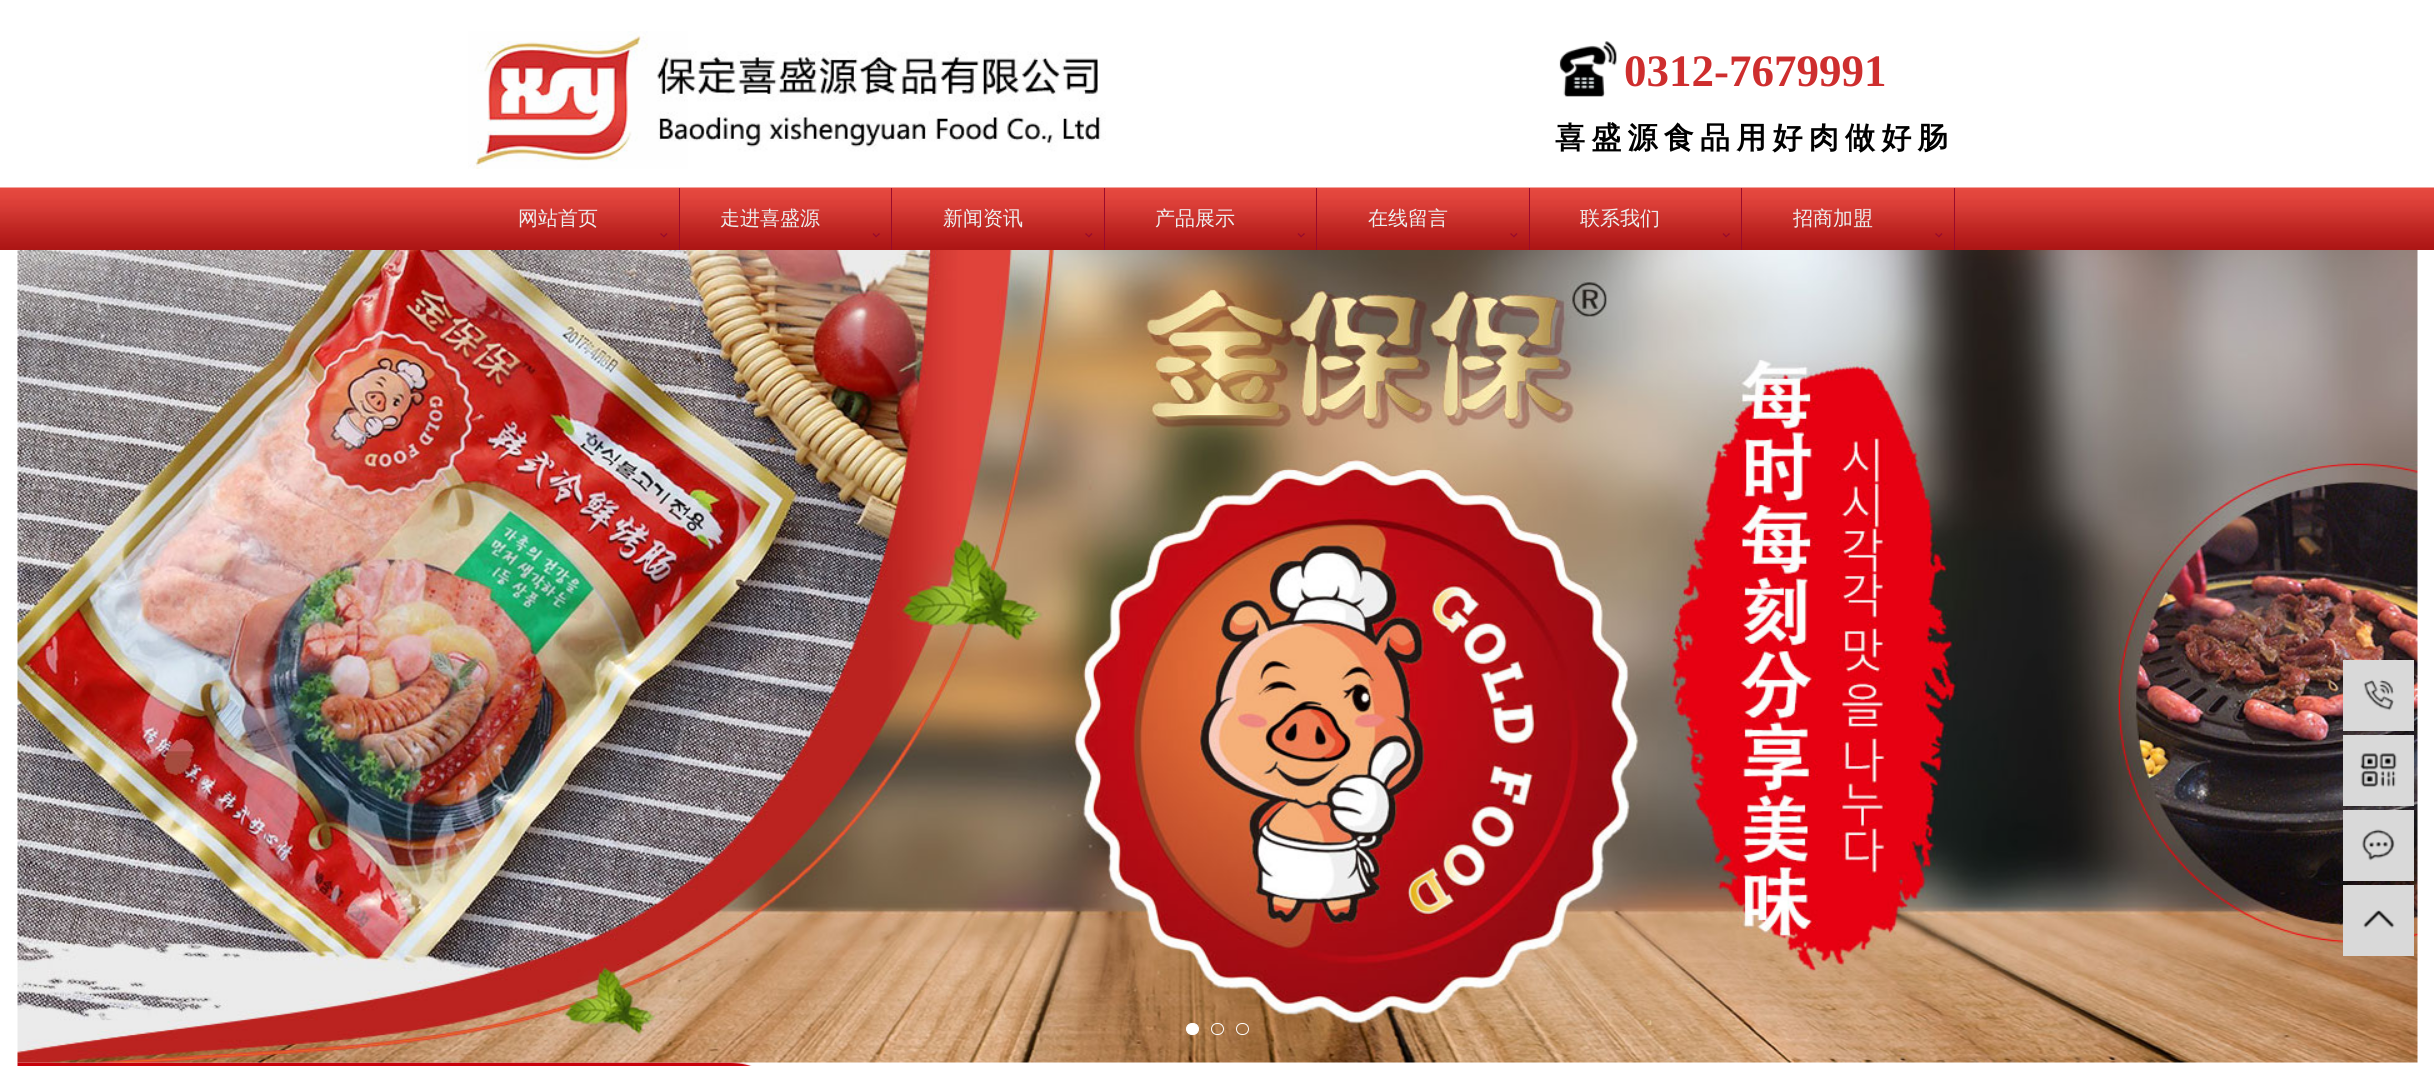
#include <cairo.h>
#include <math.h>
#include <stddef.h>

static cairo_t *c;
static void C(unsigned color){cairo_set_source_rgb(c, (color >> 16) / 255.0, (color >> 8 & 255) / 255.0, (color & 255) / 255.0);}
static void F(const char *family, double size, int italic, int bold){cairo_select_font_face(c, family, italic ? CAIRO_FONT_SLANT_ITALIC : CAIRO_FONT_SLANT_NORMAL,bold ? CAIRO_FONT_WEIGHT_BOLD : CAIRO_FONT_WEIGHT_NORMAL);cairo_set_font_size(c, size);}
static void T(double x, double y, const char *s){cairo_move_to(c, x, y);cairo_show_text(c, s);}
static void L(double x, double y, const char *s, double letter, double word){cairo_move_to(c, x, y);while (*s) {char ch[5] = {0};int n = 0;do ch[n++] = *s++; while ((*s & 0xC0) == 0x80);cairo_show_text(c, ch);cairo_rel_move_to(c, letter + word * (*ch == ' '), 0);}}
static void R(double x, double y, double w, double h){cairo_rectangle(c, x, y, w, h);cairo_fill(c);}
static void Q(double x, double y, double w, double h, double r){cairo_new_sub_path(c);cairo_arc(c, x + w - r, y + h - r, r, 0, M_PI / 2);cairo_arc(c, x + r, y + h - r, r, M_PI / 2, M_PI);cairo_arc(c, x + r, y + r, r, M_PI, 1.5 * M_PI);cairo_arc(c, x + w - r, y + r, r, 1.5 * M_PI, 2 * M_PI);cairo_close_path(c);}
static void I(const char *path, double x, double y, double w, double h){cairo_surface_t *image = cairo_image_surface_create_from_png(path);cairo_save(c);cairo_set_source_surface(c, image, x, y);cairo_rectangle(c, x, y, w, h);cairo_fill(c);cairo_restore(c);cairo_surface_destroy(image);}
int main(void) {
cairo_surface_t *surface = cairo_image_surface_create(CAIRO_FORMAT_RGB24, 2434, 1066);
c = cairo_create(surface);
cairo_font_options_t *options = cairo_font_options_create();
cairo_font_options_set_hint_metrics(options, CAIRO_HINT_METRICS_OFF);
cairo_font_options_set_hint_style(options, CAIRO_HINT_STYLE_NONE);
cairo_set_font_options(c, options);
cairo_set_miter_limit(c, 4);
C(0xffffff);
cairo_paint(c);
I("1.png",468,31,638,138);
I("2.png",1559,41,58,56);
F("Liberation Serif",45,0,1);
C(0xce2e2e);
T(1624,86,"0312-7679991");
F("WenQuanYi Zen Hei",30,0,1);
C(0x000000);
L(1555,148,"喜盛源食品用好肉做好肠",6.25,0);
I("3.png",0,187,2434,63);
C(0x990b2c);
R(679,188,1,62);
F("WenQuanYi Zen Hei Medium",20,0,0);
C(0xeeeeee);
T(518,225,"网站首页");
C(0x990b2c);
cairo_new_path(c);
cairo_move_to(c,666.5,233);
cairo_line_to(c,667.5,234);
cairo_line_to(c,664,237.5);
cairo_line_to(c,663,236.5);
cairo_close_path(c);
cairo_fill(c);
cairo_new_path(c);
cairo_move_to(c,661,233);
cairo_line_to(c,664.5,236.5);
cairo_line_to(c,664,237.5);
cairo_line_to(c,660,234);
cairo_close_path(c);
cairo_fill(c);
R(891,188,1,62);
C(0xeeeeee);
T(720,225,"走进喜盛源");
C(0x990b2c);
cairo_new_path(c);
cairo_move_to(c,879,233);
cairo_line_to(c,880,234);
cairo_line_to(c,876,237.5);
cairo_line_to(c,875.5,236.5);
cairo_close_path(c);
cairo_fill(c);
cairo_new_path(c);
cairo_move_to(c,873.5,233);
cairo_line_to(c,877,236.5);
cairo_line_to(c,876,237.5);
cairo_line_to(c,872.5,234);
cairo_close_path(c);
cairo_fill(c);
R(1104,188,1,62);
C(0xeeeeee);
T(943,225,"新闻资讯");
C(0x990b2c);
cairo_new_path(c);
cairo_move_to(c,1091.5,233);
cairo_line_to(c,1092.5,234);
cairo_line_to(c,1089,237.5);
cairo_line_to(c,1088,236.5);
cairo_close_path(c);
cairo_fill(c);
cairo_new_path(c);
cairo_move_to(c,1086,233);
cairo_line_to(c,1089.5,236.5);
cairo_line_to(c,1089,237.5);
cairo_line_to(c,1085,234);
cairo_close_path(c);
cairo_fill(c);
R(1316,188,1,62);
C(0xeeeeee);
T(1155,225,"产品展示");
C(0x990b2c);
cairo_new_path(c);
cairo_move_to(c,1304,233);
cairo_line_to(c,1305,234);
cairo_line_to(c,1301,237.5);
cairo_line_to(c,1300.5,236.5);
cairo_close_path(c);
cairo_fill(c);
cairo_new_path(c);
cairo_move_to(c,1298.5,233);
cairo_line_to(c,1302,236.5);
cairo_line_to(c,1301,237.5);
cairo_line_to(c,1297.5,234);
cairo_close_path(c);
cairo_fill(c);
R(1529,188,1,62);
C(0xeeeeee);
T(1368,225,"在线留言");
C(0x990b2c);
cairo_new_path(c);
cairo_move_to(c,1516.5,233);
cairo_line_to(c,1517.5,234);
cairo_line_to(c,1514,237.5);
cairo_line_to(c,1513,236.5);
cairo_close_path(c);
cairo_fill(c);
cairo_new_path(c);
cairo_move_to(c,1511,233);
cairo_line_to(c,1514.5,236.5);
cairo_line_to(c,1514,237.5);
cairo_line_to(c,1510,234);
cairo_close_path(c);
cairo_fill(c);
R(1741,188,1,62);
C(0xeeeeee);
T(1580,225,"联系我们");
C(0x990b2c);
cairo_new_path(c);
cairo_move_to(c,1729,233);
cairo_line_to(c,1730,234);
cairo_line_to(c,1726,237.5);
cairo_line_to(c,1725.5,236.5);
cairo_close_path(c);
cairo_fill(c);
cairo_new_path(c);
cairo_move_to(c,1723.5,233);
cairo_line_to(c,1727,236.5);
cairo_line_to(c,1726,237.5);
cairo_line_to(c,1722.5,234);
cairo_close_path(c);
cairo_fill(c);
R(1954,188,1,62);
C(0xeeeeee);
T(1793,225,"招商加盟");
C(0x990b2c);
cairo_new_path(c);
cairo_move_to(c,1941.5,233);
cairo_line_to(c,1942.5,234);
cairo_line_to(c,1939,237.5);
cairo_line_to(c,1938,236.5);
cairo_close_path(c);
cairo_fill(c);
cairo_new_path(c);
cairo_move_to(c,1936,233);
cairo_line_to(c,1939.5,236.5);
cairo_line_to(c,1939,237.5);
cairo_line_to(c,1935,234);
cairo_close_path(c);
cairo_fill(c);
I("9.png",17,1062,735,4);
I("4.png",17,250,2401,813);
C(0xffffff);
Q(1186.5,1023.5,12,11,5.5);
cairo_fill_preserve(c);
cairo_set_line_width(c,1);
cairo_stroke(c);
Q(1211.5,1023.5,12,11,5.5);
cairo_stroke(c);
Q(1236.5,1023.5,12,11,5.5);
cairo_stroke(c);
C(0xd9d9d9);
R(2343,660,71,71);
I("5.png",2363,679,31,32);
R(2343,735,71,71);
I("6.png",2360,753,37,34);
R(2343,810,71,71);
I("7.png",2361,829,34,32);
R(2343,885,71,71);
I("8.png",2363,910,32,18);
cairo_surface_write_to_png(surface, "o.png");
cairo_font_options_destroy(options);
cairo_destroy(c);
cairo_surface_destroy(surface);
return 0;
}
